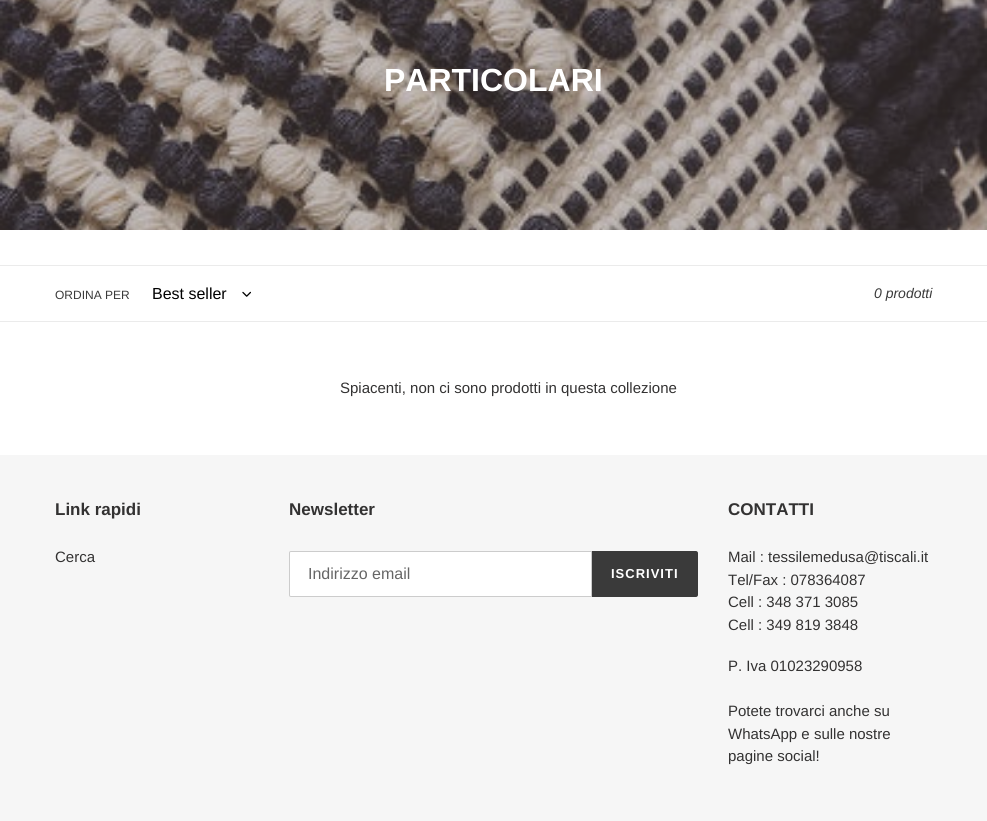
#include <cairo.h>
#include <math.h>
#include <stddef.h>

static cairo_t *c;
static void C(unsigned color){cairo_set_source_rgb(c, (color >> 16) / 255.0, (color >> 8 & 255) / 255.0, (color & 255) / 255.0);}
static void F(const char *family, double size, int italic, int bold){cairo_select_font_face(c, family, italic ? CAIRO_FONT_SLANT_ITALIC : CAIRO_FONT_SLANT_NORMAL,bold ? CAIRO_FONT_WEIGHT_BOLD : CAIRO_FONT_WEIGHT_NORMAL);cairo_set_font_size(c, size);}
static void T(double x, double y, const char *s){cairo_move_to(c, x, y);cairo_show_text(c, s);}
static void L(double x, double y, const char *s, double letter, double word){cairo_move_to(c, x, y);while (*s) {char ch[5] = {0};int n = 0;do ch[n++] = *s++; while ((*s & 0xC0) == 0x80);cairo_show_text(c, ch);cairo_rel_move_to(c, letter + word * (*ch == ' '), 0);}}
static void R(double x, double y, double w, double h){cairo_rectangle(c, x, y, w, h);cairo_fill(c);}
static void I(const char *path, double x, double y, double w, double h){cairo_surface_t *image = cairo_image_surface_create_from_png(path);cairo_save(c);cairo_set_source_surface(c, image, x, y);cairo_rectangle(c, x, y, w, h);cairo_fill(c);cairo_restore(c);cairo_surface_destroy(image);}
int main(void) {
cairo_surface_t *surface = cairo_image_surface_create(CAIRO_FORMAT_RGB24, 987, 821);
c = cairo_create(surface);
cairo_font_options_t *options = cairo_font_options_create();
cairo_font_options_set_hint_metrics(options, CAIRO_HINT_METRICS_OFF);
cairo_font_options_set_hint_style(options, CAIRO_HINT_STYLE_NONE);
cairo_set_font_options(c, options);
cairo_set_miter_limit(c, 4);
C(0xffffff);
cairo_paint(c);
I("1.png",0,0,987,230);
F("Liberation Sans",32,0,1);
C(0xffffff);
T(384,91,"PARTICOLARI");
C(0xebebeb);
R(0,265,987,1);
R(0,321,987,1);
F("Liberation Sans",12,0,0);
C(0x3a3a3a);
T(55,299,"ORDINA PER");
F("Liberation Sans",16,0,0);
C(0x000000);
T(152,299,"Best seller");
I("2.png",242,291,9,6);
F("Liberation Sans",14,1,0);
C(0x3a3a3a);
T(874,298,"0 prodotti");
F("Liberation Sans",15,0,0);
C(0x333232);
T(340,393,"Spiacenti, non ci sono prodotti in questa collezione");
C(0xf6f6f6);
R(0,455,987,366);
F("Liberation Sans",17,0,1);
C(0x333232);
T(55,515,"Link rapidi");
F("Liberation Sans",15,0,0);
T(55,562,"Cerca");
F("Liberation Sans",17,0,1);
T(289,515,"Newsletter");
C(0xffffff);
cairo_new_path(c);
cairo_move_to(c,291,551.5);
cairo_line_to(c,591.5,551.5);
cairo_line_to(c,591.5,596.5);
cairo_line_to(c,291,596.5);
cairo_curve_to(c,290,596.5,289.5,596,289.5,595);
cairo_line_to(c,289.5,553);
cairo_curve_to(c,289.5,552,290,551.5,291,551.5);
cairo_close_path(c);
cairo_fill_preserve(c);
C(0xcccccc);
cairo_set_line_width(c,1);
cairo_stroke(c);
F("Liberation Sans",16,0,0);
C(0x666666);
T(308,579,"Indirizzo email");
C(0x3a3a3a);
cairo_new_path(c);
cairo_move_to(c,592,551);
cairo_line_to(c,696,551);
cairo_curve_to(c,697,551,698,552,698,553);
cairo_line_to(c,698,595);
cairo_curve_to(c,698,596,697,597,696,597);
cairo_line_to(c,592,597);
cairo_close_path(c);
cairo_fill(c);
F("Liberation Sans",13,0,1);
C(0xffffff);
L(611,578,"ISCRIVITI",1,0);
F("Liberation Sans",17,0,1);
C(0x333232);
T(728,515,"CONTATTI");
F("Liberation Sans",15,0,0);
T(728,562,"Mail : tessilemedusa@tiscali.it");
T(728,585,"Tel/Fax : 078364087");
T(728,607,"Cell : 348 371 3085");
T(728,630,"Cell : 349 819 3848");
T(728,671,"P. Iva 01023290958");
T(728,716,"Potete trovarci anche su");
T(728,739,"WhatsApp e sulle nostre");
T(728,761,"pagine social!");
cairo_surface_write_to_png(surface, "o.png");
cairo_font_options_destroy(options);
cairo_destroy(c);
cairo_surface_destroy(surface);
return 0;
}
